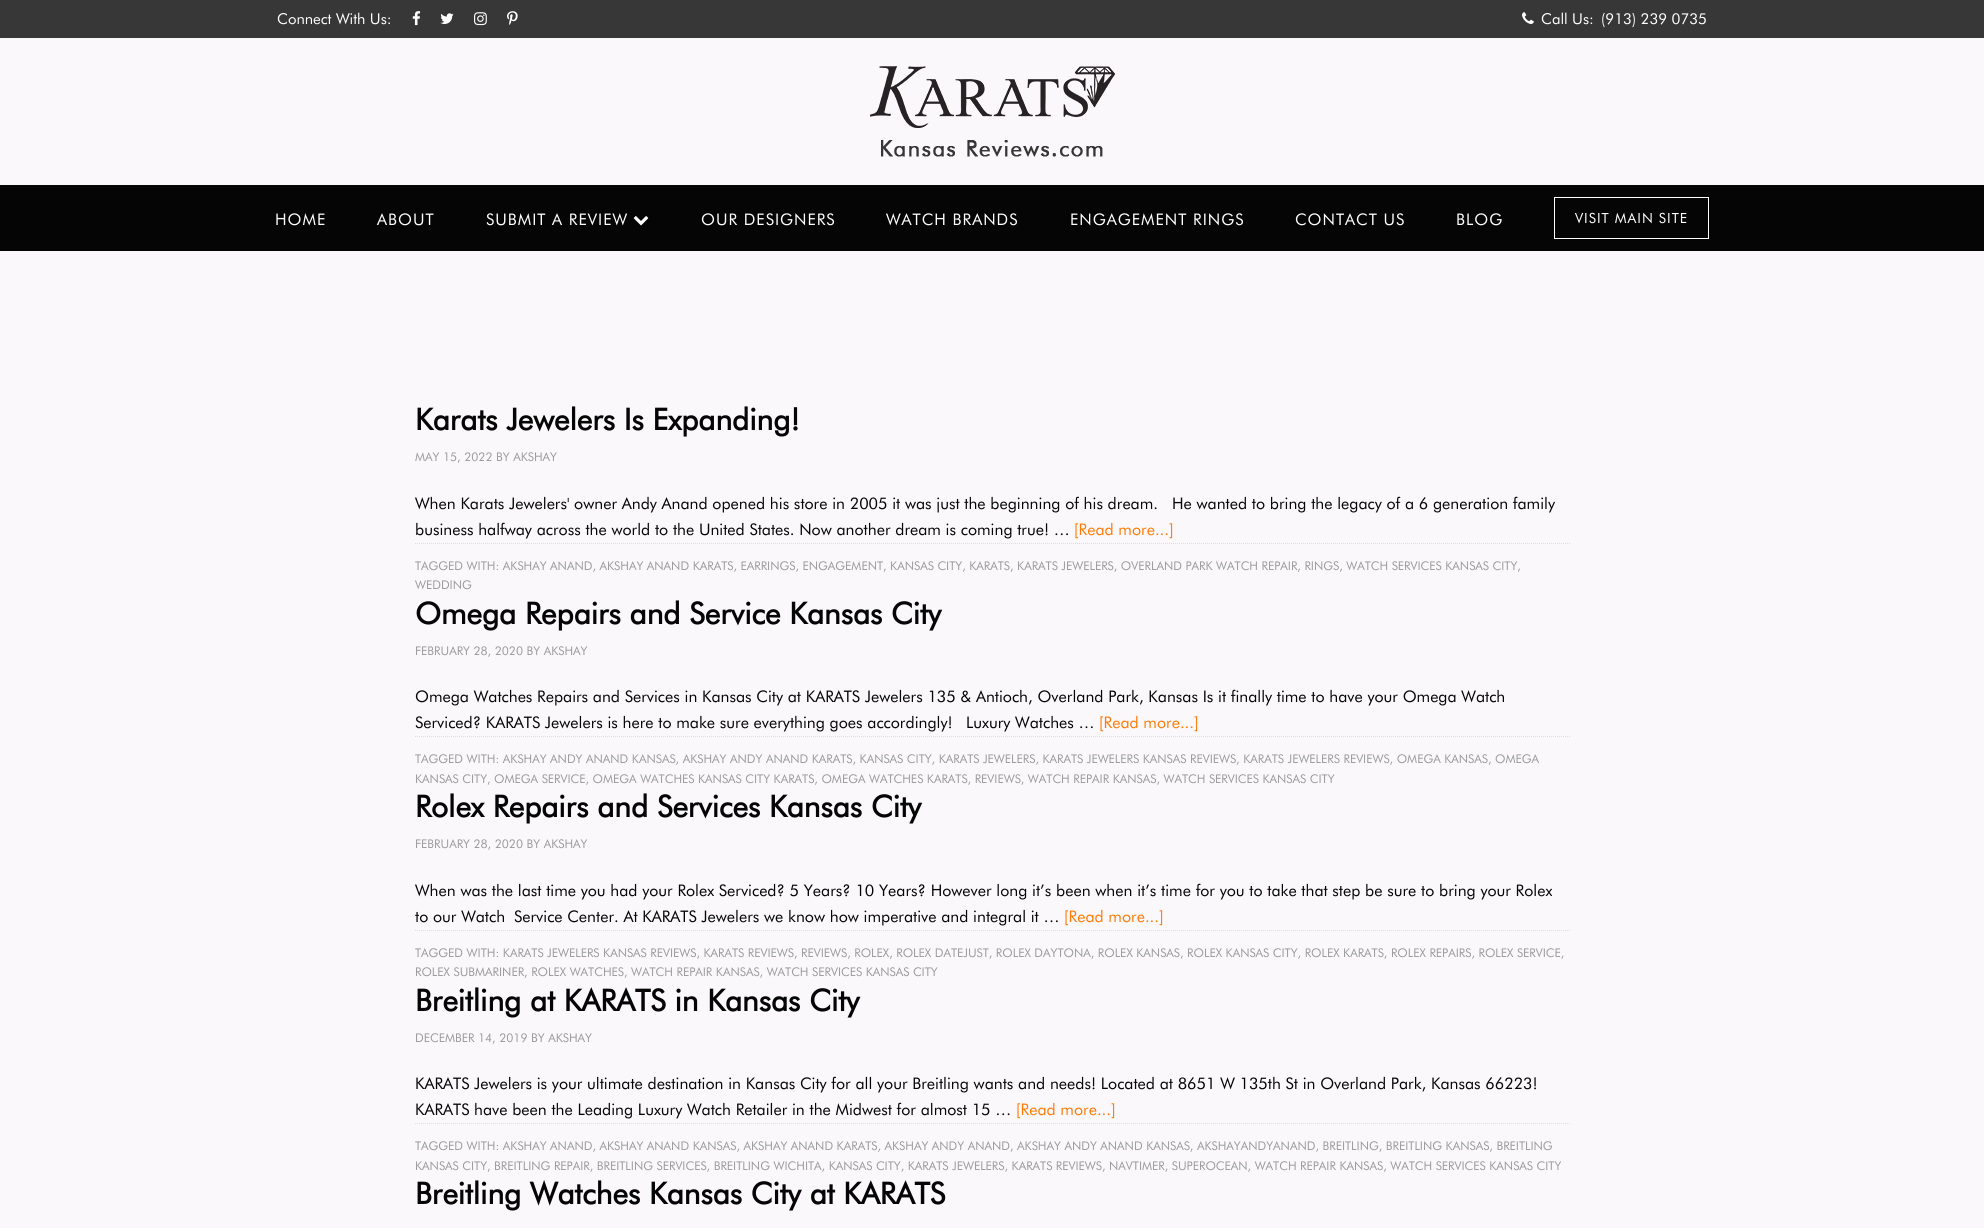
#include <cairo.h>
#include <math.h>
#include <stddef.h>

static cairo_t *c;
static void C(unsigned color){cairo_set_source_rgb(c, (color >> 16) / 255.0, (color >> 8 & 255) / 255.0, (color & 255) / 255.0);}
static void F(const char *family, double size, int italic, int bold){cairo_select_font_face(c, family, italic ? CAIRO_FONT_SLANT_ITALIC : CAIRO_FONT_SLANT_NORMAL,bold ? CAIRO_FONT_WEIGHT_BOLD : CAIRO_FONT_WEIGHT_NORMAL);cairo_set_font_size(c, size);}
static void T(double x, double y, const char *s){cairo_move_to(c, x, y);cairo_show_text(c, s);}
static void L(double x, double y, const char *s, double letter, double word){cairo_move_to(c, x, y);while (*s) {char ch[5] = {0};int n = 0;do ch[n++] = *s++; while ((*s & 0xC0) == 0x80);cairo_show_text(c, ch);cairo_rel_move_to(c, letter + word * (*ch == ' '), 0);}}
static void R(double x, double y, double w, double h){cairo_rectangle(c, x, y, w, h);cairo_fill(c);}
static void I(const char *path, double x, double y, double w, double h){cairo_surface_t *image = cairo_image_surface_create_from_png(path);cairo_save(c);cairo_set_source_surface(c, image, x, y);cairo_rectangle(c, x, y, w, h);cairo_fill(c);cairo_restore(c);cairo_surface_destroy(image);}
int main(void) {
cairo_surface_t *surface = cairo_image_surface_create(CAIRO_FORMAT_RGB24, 1984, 1228);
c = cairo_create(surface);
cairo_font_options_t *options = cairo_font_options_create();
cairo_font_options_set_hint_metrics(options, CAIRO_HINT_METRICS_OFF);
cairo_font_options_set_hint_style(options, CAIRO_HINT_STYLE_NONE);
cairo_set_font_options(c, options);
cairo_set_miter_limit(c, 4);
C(0xfaf8fb);
cairo_paint(c);
C(0x373737);
R(0,0,1984,38);
F("Futura",15,0,0);
C(0xffffff);
T(277,24,"Connect With Us:");
I("1.png",412,11,9,15);
I("2.png",440,13,14,11);
I("3.png",474,12,13,14);
I("4.png",507,11,11,14);
I("5.png",1522,12,12,12);
T(1541,24,"Call Us:");
T(1601,24,"(913) 239 0735");
I("6.png",870,66,245,91);
C(0x050505);
R(0,185,1984,66);
F("Futura",16,0,0);
C(0xffffff);
L(275,225,"HOME",1,0);
L(377,225,"ABOUT",1,0);
L(486,225,"SUBMIT A REVIEW",1,0);
I("7.png",633,216,16,10);
L(701,225,"OUR DESIGNERS",1,0);
L(886,225,"WATCH BRANDS",1,0);
L(1070,225,"ENGAGEMENT RINGS",1,0);
L(1295,225,"CONTACT US",1,0);
L(1456,225,"BLOG",1,0);
cairo_rectangle(c,1554.5,197.5,154,41);
cairo_set_line_width(c,1);
cairo_stroke(c);
F("Futura",14,0,0);
L(1575,223,"VISIT MAIN SITE",1,0);
F("Futura",30,0,1);
C(0x050505);
T(415,430,"Karats Jewelers Is Expanding!");
F("Futura",12,0,0);
C(0x9b9b9b);
T(415,461,"MAY 15, 2022 BY AKSHAY");
F("Futura",16,0,0);
C(0x050505);
T(415,509,"When Karats Jewelers' owner Andy Anand opened his store in 2005 it was just the beginning of his dream.");
T(1172,509,"He wanted to bring the legacy of a 6 generation family");
T(415,535,"business halfway across the world to the United States. Now another dream is coming true! …");
C(0xff7b05);
T(1074,535,"[Read more...]");
cairo_new_path(c);
cairo_move_to(c,415,543.5);
cairo_line_to(c,1570,543.5);
C(0xdedede);
cairo_set_dash(c,(double[]){1,1},2,0);
cairo_stroke(c);
F("Futura",12,0,0);
C(0x9b9b9b);
T(415,570,"TAGGED WITH: AKSHAY ANAND, AKSHAY ANAND KARATS, EARRINGS, ENGAGEMENT, KANSAS CITY, KARATS, KARATS JEWELERS, OVERLAND PARK WATCH REPAIR, RINGS, WATCH SERVICES KANSAS CITY,");
T(415,589,"WEDDING");
F("Futura",30,0,1);
C(0x050505);
T(415,624,"Omega Repairs and Service Kansas City");
F("Futura",12,0,0);
C(0x9b9b9b);
T(415,655,"FEBRUARY 28, 2020 BY AKSHAY");
F("Futura",16,0,0);
C(0x050505);
T(415,702,"Omega Watches Repairs and Services in Kansas City at KARATS Jewelers 135 & Antioch, Overland Park, Kansas Is it finally time to have your Omega Watch");
T(415,728,"Serviced? KARATS Jewelers is here to make sure everything goes accordingly!");
T(966,728,"Luxury Watches …");
C(0xff7b05);
T(1099,728,"[Read more...]");
cairo_new_path(c);
cairo_move_to(c,415,736.5);
cairo_line_to(c,1570,736.5);
C(0xdedede);
cairo_stroke(c);
F("Futura",12,0,0);
C(0x9b9b9b);
T(415,763,"TAGGED WITH: AKSHAY ANDY ANAND KANSAS, AKSHAY ANDY ANAND KARATS, KANSAS CITY, KARATS JEWELERS, KARATS JEWELERS KANSAS REVIEWS, KARATS JEWELERS REVIEWS, OMEGA KANSAS, OMEGA");
T(415,783,"KANSAS CITY, OMEGA SERVICE, OMEGA WATCHES KANSAS CITY KARATS, OMEGA WATCHES KARATS, REVIEWS, WATCH REPAIR KANSAS, WATCH SERVICES KANSAS CITY");
F("Futura",30,0,1);
C(0x050505);
T(415,817,"Rolex Repairs and Services Kansas City");
F("Futura",12,0,0);
C(0x9b9b9b);
T(415,848,"FEBRUARY 28, 2020 BY AKSHAY");
F("Futura",16,0,0);
C(0x050505);
T(415,896,"When was the last time you had your Rolex Serviced? 5 Years? 10 Years? However long it’s been when it’s time for you to take that step be sure to bring your Rolex");
T(415,922,"to our Watch");
T(514,922,"Service Center. At KARATS Jewelers we know how imperative and integral it …");
C(0xff7b05);
T(1064,922,"[Read more...]");
cairo_new_path(c);
cairo_move_to(c,415,930.5);
cairo_line_to(c,1570,930.5);
C(0xdedede);
cairo_stroke(c);
F("Futura",12,0,0);
C(0x9b9b9b);
T(415,957,"TAGGED WITH: KARATS JEWELERS KANSAS REVIEWS, KARATS REVIEWS, REVIEWS, ROLEX, ROLEX DATEJUST, ROLEX DAYTONA, ROLEX KANSAS, ROLEX KANSAS CITY, ROLEX KARATS, ROLEX REPAIRS, ROLEX SERVICE,");
T(415,976,"ROLEX SUBMARINER, ROLEX WATCHES, WATCH REPAIR KANSAS, WATCH SERVICES KANSAS CITY");
F("Futura",30,0,1);
C(0x050505);
T(415,1011,"Breitling at KARATS in Kansas City");
F("Futura",12,0,0);
C(0x9b9b9b);
T(415,1042,"DECEMBER 14, 2019 BY AKSHAY");
F("Futura",16,0,0);
C(0x050505);
T(415,1089,"KARATS Jewelers is your ultimate destination in Kansas City for all your Breitling wants and needs! Located at 8651 W 135th St in Overland Park, Kansas 66223!");
T(415,1115,"KARATS have been the Leading Luxury Watch Retailer in the Midwest for almost 15 …");
C(0xff7b05);
T(1016,1115,"[Read more...]");
cairo_new_path(c);
cairo_move_to(c,415,1123.5);
cairo_line_to(c,1570,1123.5);
C(0xdedede);
cairo_stroke(c);
F("Futura",12,0,0);
C(0x9b9b9b);
T(415,1150,"TAGGED WITH: AKSHAY ANAND, AKSHAY ANAND KANSAS, AKSHAY ANAND KARATS, AKSHAY ANDY ANAND, AKSHAY ANDY ANAND KANSAS, AKSHAYANDYANAND, BREITLING, BREITLING KANSAS, BREITLING");
T(415,1170,"KANSAS CITY, BREITLING REPAIR, BREITLING SERVICES, BREITLING WICHITA, KANSAS CITY, KARATS JEWELERS, KARATS REVIEWS, NAVTIMER, SUPEROCEAN, WATCH REPAIR KANSAS, WATCH SERVICES KANSAS CITY");
F("Futura",30,0,1);
C(0x050505);
T(415,1204,"Breitling Watches Kansas City at KARATS");
cairo_surface_write_to_png(surface, "o.png");
cairo_font_options_destroy(options);
cairo_destroy(c);
cairo_surface_destroy(surface);
return 0;
}
